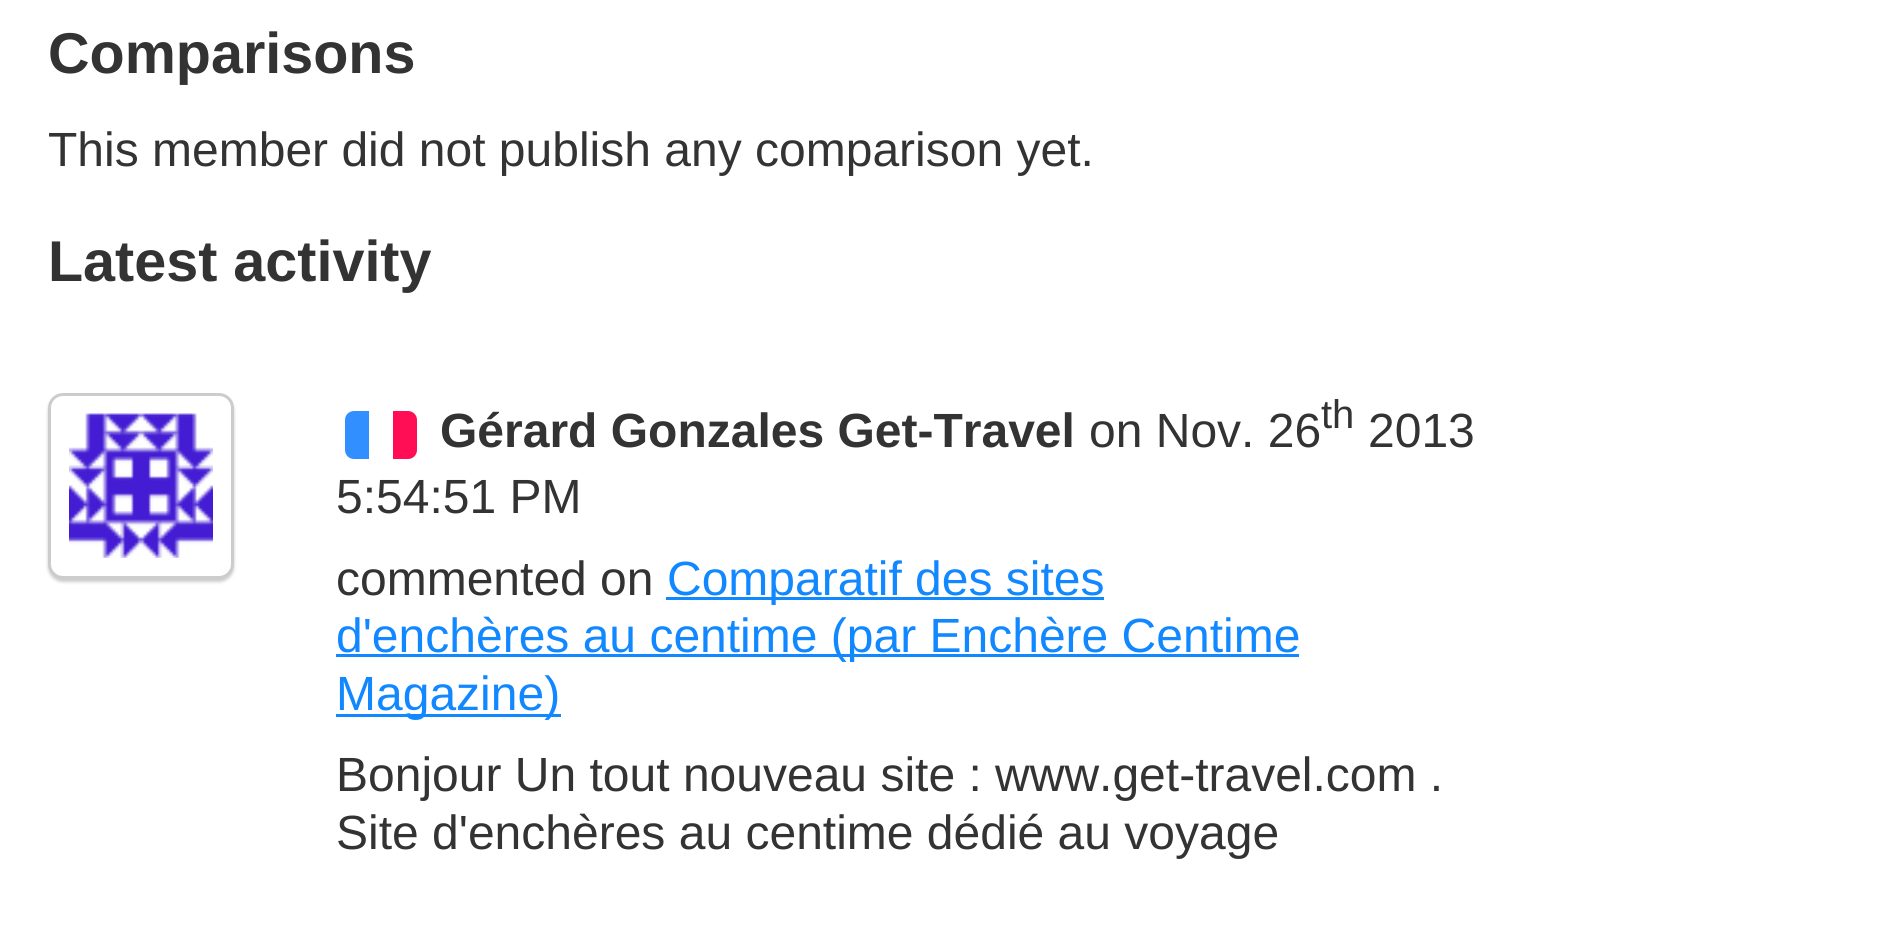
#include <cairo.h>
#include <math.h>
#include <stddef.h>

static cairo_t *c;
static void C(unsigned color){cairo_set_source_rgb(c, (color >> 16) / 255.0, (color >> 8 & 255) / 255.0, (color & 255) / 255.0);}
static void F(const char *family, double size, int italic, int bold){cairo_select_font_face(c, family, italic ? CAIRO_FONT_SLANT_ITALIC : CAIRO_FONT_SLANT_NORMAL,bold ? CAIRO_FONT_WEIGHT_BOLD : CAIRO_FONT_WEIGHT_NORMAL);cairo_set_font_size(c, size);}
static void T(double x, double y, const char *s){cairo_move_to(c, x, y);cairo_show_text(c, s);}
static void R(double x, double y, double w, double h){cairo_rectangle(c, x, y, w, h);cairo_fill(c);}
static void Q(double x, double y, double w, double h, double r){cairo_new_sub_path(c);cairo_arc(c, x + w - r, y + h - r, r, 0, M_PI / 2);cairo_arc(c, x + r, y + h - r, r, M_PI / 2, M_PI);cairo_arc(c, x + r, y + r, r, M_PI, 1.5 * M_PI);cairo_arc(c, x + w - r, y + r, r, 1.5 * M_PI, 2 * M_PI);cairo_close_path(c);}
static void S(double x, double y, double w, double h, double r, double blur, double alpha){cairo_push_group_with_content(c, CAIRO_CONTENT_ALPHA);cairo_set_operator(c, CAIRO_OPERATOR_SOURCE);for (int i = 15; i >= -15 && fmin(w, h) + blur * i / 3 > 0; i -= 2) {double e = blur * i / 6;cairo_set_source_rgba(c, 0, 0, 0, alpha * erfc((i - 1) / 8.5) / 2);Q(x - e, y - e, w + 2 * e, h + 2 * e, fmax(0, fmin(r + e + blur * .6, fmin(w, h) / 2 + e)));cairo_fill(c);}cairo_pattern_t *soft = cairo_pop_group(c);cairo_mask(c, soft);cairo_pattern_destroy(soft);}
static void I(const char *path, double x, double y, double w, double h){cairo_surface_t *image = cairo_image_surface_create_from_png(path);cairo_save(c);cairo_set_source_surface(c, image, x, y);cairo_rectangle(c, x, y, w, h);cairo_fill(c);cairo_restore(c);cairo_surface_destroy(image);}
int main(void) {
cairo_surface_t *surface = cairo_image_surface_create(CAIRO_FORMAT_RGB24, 1898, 931);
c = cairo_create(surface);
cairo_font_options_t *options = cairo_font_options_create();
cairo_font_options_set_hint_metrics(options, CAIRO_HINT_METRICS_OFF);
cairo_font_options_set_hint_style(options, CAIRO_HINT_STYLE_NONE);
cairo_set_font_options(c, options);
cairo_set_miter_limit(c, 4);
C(0xffffff);
cairo_paint(c);
F("Liberation Sans",57.5,0,1);
C(0x333333);
T(48,73,"Comparisons");
F("Liberation Sans",48,0,0);
T(48,166,"This member did not publish any comparison yet.");
F("Liberation Sans",57.5,0,1);
T(48,281,"Latest activity");
C(0xcccccc);
S(48,396,186,186,15,1.5,1);
C(0xffffff);
Q(49.5,394.5,183,183,13.5);
cairo_fill_preserve(c);
C(0xcccccc);
cairo_set_line_width(c,3);
cairo_stroke(c);
I("1.png",69,413,144,145);
C(0x318fff);
cairo_new_path(c);
cairo_move_to(c,354,411);
cairo_line_to(c,369,411);
cairo_line_to(c,369,459);
cairo_line_to(c,354,459);
cairo_curve_to(c,349,459,345,455,345,450);
cairo_line_to(c,345,420);
cairo_curve_to(c,345,415,349,411,354,411);
cairo_close_path(c);
cairo_fill(c);
C(0xff0e56);
cairo_new_path(c);
cairo_move_to(c,393,411);
cairo_line_to(c,408,411);
cairo_curve_to(c,413,411,417,415,417,420);
cairo_line_to(c,417,450);
cairo_curve_to(c,417,455,413,459,408,459);
cairo_line_to(c,393,459);
cairo_close_path(c);
cairo_fill(c);
F("Liberation Sans",48,0,1);
C(0x333333);
T(440,447,"Gérard Gonzales Get-Travel");
F("Liberation Sans",48,0,0);
T(1089,447,"on Nov. 26");
F("Liberation Sans",40,0,0);
T(1321,428,"th");
F("Liberation Sans",48,0,0);
T(1368,447,"2013");
T(336,513,"5:54:51 PM");
T(336,595,"commented on");
C(0x1188ff);
R(666,597,438,3);
T(667,595,"Comparatif des sites");
R(336,654,963,3);
T(336,652,"d'enchères au centime (par Enchère Centime");
R(336,714,225,3);
T(336,710,"Magazine)");
C(0x333333);
T(336,791,"Bonjour Un tout nouveau site : www.get-travel.com .");
T(336,849,"Site d'enchères au centime dédié au voyage");
cairo_surface_write_to_png(surface, "o.png");
cairo_font_options_destroy(options);
cairo_destroy(c);
cairo_surface_destroy(surface);
return 0;
}
